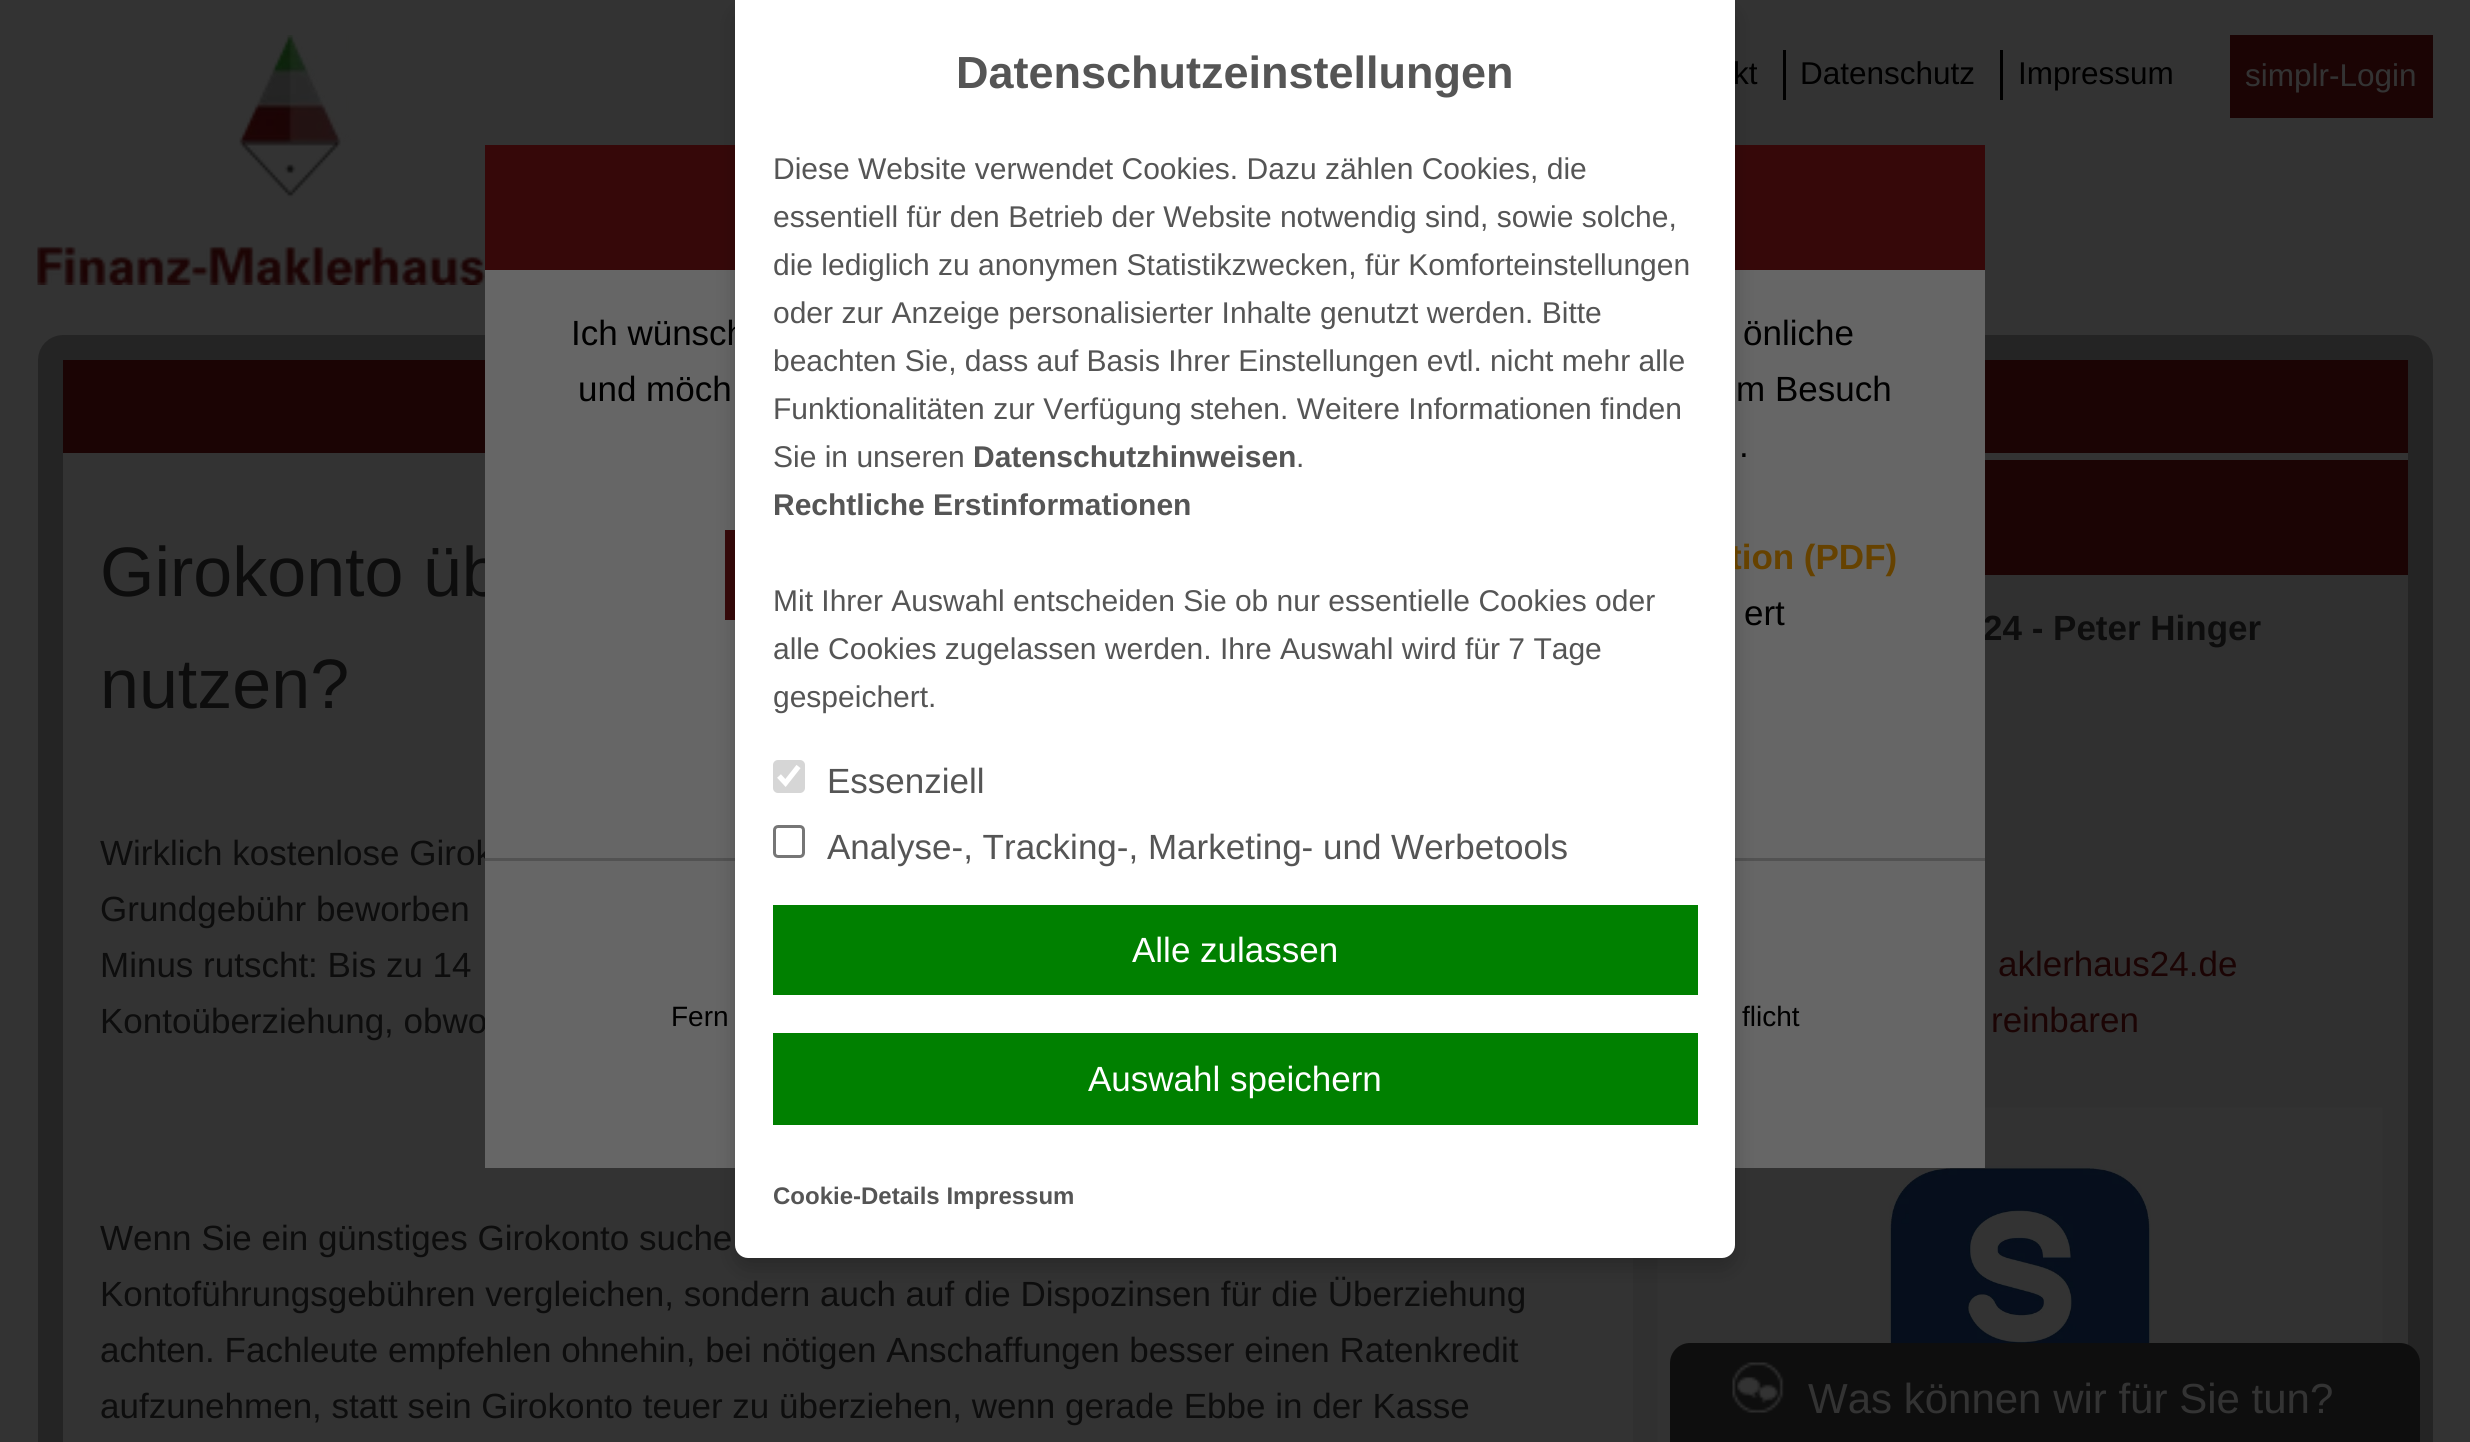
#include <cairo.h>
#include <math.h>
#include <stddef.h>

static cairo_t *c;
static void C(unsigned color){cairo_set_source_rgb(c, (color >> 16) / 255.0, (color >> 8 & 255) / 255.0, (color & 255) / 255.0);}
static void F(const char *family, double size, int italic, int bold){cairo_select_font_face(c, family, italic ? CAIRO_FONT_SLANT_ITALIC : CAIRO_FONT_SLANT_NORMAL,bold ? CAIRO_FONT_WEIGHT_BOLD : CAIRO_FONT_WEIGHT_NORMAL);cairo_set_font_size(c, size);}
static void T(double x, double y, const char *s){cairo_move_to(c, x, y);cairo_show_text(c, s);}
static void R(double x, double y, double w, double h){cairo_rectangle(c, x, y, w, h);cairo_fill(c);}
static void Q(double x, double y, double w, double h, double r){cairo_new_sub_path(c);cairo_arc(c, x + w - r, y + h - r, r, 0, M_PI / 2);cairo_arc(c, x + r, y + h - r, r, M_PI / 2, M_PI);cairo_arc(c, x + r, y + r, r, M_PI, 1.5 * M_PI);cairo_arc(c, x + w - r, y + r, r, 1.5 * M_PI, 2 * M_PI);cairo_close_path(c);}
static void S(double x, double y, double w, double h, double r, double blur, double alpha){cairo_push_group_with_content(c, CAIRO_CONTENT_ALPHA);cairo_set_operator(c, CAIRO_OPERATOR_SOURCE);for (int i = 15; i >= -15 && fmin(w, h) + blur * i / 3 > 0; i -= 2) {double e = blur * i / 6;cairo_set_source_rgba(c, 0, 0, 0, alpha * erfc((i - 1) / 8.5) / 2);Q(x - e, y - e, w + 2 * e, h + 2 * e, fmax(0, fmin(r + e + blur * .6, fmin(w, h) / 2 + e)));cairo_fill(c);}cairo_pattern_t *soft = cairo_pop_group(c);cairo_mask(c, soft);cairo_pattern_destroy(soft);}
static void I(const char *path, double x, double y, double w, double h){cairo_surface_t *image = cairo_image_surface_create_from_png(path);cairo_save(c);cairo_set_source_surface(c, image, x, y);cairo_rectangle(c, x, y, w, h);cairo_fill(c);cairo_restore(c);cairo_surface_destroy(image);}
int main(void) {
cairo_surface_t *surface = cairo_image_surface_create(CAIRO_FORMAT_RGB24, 2470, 1442);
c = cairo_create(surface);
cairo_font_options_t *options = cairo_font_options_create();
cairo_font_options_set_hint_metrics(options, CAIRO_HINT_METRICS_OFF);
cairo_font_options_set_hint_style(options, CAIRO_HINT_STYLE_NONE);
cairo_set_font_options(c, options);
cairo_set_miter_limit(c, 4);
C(0x333333);
cairo_paint(c);
Q(50.5,347.5,2370,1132,12.5);
C(0x242424);
cairo_set_line_width(c,25);
cairo_stroke(c);
C(0x1b0404);
R(63,360,2345,93);
C(0x303030);
R(1633,575,775,867);
I("2.png",1657,1107,726,335);
F("Liberation Sans",70,0,0);
C(0x0d0d0d);
T(100,596,"Girokonto üb");
F("Liberation Sans",35,0,0);
T(100,865,"Wirklich kostenlose Girok");
T(100,1033,"Kontoüberziehung, obwo");
F("Liberation Sans",35,0,1);
T(1983,640,"24 - Peter Hinger");
C(0x666666);
R(485,270,1500,898);
C(0x360809);
R(485,145,1500,125);
R(725,530,10,90);
C(0x525252);
R(485,858,1500,3);
C(0x000000);
S(735,10,1000,1258,13,10,.2);
F("Liberation Sans",31.5,0,0);
C(0x000000);
T(1733,84,"kt");
F("Liberation Sans",35,0,0);
T(571,345,"Ich wünsch");
F("Liberation Sans",35,0,1);
C(0x664200);
T(1730,569,"tion (PDF)");
C(0xffffff);
cairo_new_path(c);
cairo_move_to(c,735,0);
cairo_line_to(c,1735,0);
cairo_line_to(c,1735,1245);
cairo_curve_to(c,1735,1252,1729,1258,1722,1258);
cairo_line_to(c,748,1258);
cairo_curve_to(c,741,1258,735,1252,735,1245);
cairo_close_path(c);
cairo_fill(c);
F("Liberation Sans",45,0,1);
C(0x555555);
T(956,88,"Datenschutzeinstellungen");
F("Liberation Sans",30,0,0);
T(773,179,"Diese Website verwendet Cookies. Dazu zählen Cookies, die");
T(773,227,"essentiell für den Betrieb der Website notwendig sind, sowie solche,");
T(773,275,"die lediglich zu anonymen Statistikzwecken, für Komforteinstellungen");
T(773,323,"oder zur Anzeige personalisierter Inhalte genutzt werden. Bitte");
T(773,371,"beachten Sie, dass auf Basis Ihrer Einstellungen evtl. nicht mehr alle");
T(773,419,"Funktionalitäten zur Verfügung stehen. Weitere Informationen finden");
T(773,467,"Sie in unseren");
F("Liberation Sans",30,0,1);
T(973,467,"Datenschutzhinweisen");
F("Liberation Sans",30,0,0);
T(1296,467,".");
F("Liberation Sans",30,0,1);
T(773,515,"Rechtliche Erstinformationen");
F("Liberation Sans",30,0,0);
T(773,611,"Mit Ihrer Auswahl entscheiden Sie ob nur essentielle Cookies oder");
T(773,659,"alle Cookies zugelassen werden. Ihre Auswahl wird für 7 Tage");
T(773,707,"gespeichert.");
C(0xd6d6d6);
Q(773,760,32,33,5);
cairo_fill(c);
cairo_new_path(c);
cairo_move_to(c,779,776);
cairo_line_to(c,785.5,783);
cairo_line_to(c,798.5,766.5);
C(0xffffff);
cairo_set_line_width(c,5.2);
cairo_stroke(c);
F("Liberation Sans",35,0,0);
C(0x555555);
T(827,793,"Essenziell");
Q(774.5,826.5,29,30,3.5);
C(0x767676);
cairo_set_line_width(c,3);
cairo_stroke(c);
C(0x555555);
T(827,859,"Analyse-, Tracking-, Marketing- und Werbetools");
C(0x008000);
R(773,905,925,90);
C(0xffffff);
T(1132,962,"Alle zulassen");
C(0x008000);
R(773,1033,925,92);
C(0xffffff);
T(1088,1091,"Auswahl speichern");
F("Liberation Sans",24,0,1);
C(0x555555);
T(773,1204,"Cookie-Details Impressum");
I("1.png",37,35,448,250);
C(0x000000);
R(1783,50,3,50);
F("Liberation Sans",31.5,0,0);
T(1800,84,"Datenschutz");
R(2000,50,3,50);
T(2018,84,"Impressum");
C(0x1b0404);
R(2230,35,203,83);
C(0x333333);
T(2245,86,"simplr-Login");
F("Liberation Sans",70,0,0);
C(0x0d0d0d);
T(100,708,"nutzen?");
F("Liberation Sans",35,0,0);
T(100,921,"Grundgebühr beworben");
T(100,977,"Minus rutscht: Bis zu 14");
T(100,1250,"Wenn Sie ein günstiges Girokonto suche");
T(100,1306,"Kontoführungsgebühren vergleichen, sondern auch auf die Dispozinsen für die Überziehung");
T(100,1362,"achten. Fachleute empfehlen ohnehin, bei nötigen Anschaffungen besser einen Ratenkredit");
T(100,1418,"aufzunehmen, statt sein Girokonto teuer zu überziehen, wenn gerade Ebbe in der Kasse");
C(0x1b0404);
R(1985,460,423,115);
T(1998,976,"aklerhaus24.de");
T(1991,1032,"reinbaren");
C(0x000000);
T(578,401,"und möch");
T(1743,345,"önliche");
T(1736,401,"m Besuch");
T(1739,457,".");
T(1744,625,"ert");
F("Liberation Sans",28,0,0);
T(671,1026,"Fern");
T(1742,1026,"flicht");
C(0x0e0e0e);
cairo_new_path(c);
cairo_move_to(c,1690,1343);
cairo_line_to(c,2400,1343);
cairo_curve_to(c,2411,1343,2420,1352,2420,1363);
cairo_line_to(c,2420,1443);
cairo_line_to(c,1670,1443);
cairo_line_to(c,1670,1363);
cairo_curve_to(c,1670,1352,1679,1343,1690,1343);
cairo_close_path(c);
cairo_fill(c);
I("3.png",1732,1362,52,51);
F("Liberation Sans",42,0,0);
C(0x333333);
T(1808,1413,"Was können wir für Sie tun?");
cairo_surface_write_to_png(surface, "o.png");
cairo_font_options_destroy(options);
cairo_destroy(c);
cairo_surface_destroy(surface);
return 0;
}
